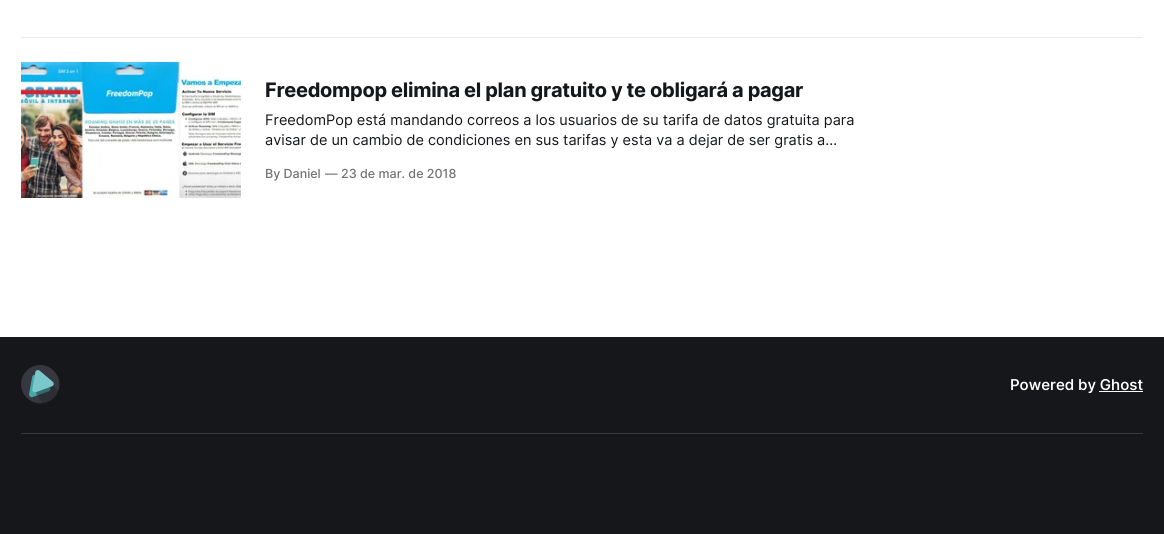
#include <cairo.h>
#include <math.h>
#include <stddef.h>

static cairo_t *c;
static void C(unsigned color){cairo_set_source_rgb(c, (color >> 16) / 255.0, (color >> 8 & 255) / 255.0, (color & 255) / 255.0);}
static void F(const char *family, double size, int italic, int bold){cairo_select_font_face(c, family, italic ? CAIRO_FONT_SLANT_ITALIC : CAIRO_FONT_SLANT_NORMAL,bold ? CAIRO_FONT_WEIGHT_BOLD : CAIRO_FONT_WEIGHT_NORMAL);cairo_set_font_size(c, size);}
static void T(double x, double y, const char *s){cairo_move_to(c, x, y);cairo_show_text(c, s);}
static void L(double x, double y, const char *s, double letter, double word){cairo_move_to(c, x, y);while (*s) {char ch[5] = {0};int n = 0;do ch[n++] = *s++; while ((*s & 0xC0) == 0x80);cairo_show_text(c, ch);cairo_rel_move_to(c, letter + word * (*ch == ' '), 0);}}
static void R(double x, double y, double w, double h){cairo_rectangle(c, x, y, w, h);cairo_fill(c);}
static void I(const char *path, double x, double y, double w, double h){cairo_surface_t *image = cairo_image_surface_create_from_png(path);cairo_save(c);cairo_set_source_surface(c, image, x, y);cairo_rectangle(c, x, y, w, h);cairo_fill(c);cairo_restore(c);cairo_surface_destroy(image);}
int main(void) {
cairo_surface_t *surface = cairo_image_surface_create(CAIRO_FORMAT_RGB24, 1164, 534);
c = cairo_create(surface);
cairo_font_options_t *options = cairo_font_options_create();
cairo_font_options_set_hint_metrics(options, CAIRO_HINT_METRICS_OFF);
cairo_font_options_set_hint_style(options, CAIRO_HINT_STYLE_NONE);
cairo_set_font_options(c, options);
cairo_set_miter_limit(c, 4);
C(0xffffff);
cairo_paint(c);
C(0xebebeb);
R(21,37,1122,1);
I("1.png",21,62,220,136);
F("Inter",19.95,0,1);
C(0x15171a);
L(265,97,"Freedompop elimina el plan gratuito y te obligará a pagar",-.28,0);
F("Inter",14.5,0,0);
T(265,125,"FreedomPop está mandando correos a los usuarios de su tarifa de datos gratuita para");
T(265,145,"avisar de un cambio de condiciones en sus tarifas y esta va a dejar de ser gratis a…");
F("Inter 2 Medium",12.5,0,0);
C(0x737373);
T(265,178,"By Daniel");
T(325,178,"—");
T(341,178,"23 de mar. de 2018");
C(0x15171a);
R(0,337,1164,197);
C(0x383a3c);
R(21,433,1122,1);
I("2.png",21,365,39,39);
F("Inter Medium",15,0,0);
C(0xffffff);
T(1010,390,"Powered by Ghost");
R(1099,391,44,1);
cairo_surface_write_to_png(surface, "o.png");
cairo_font_options_destroy(options);
cairo_destroy(c);
cairo_surface_destroy(surface);
return 0;
}
